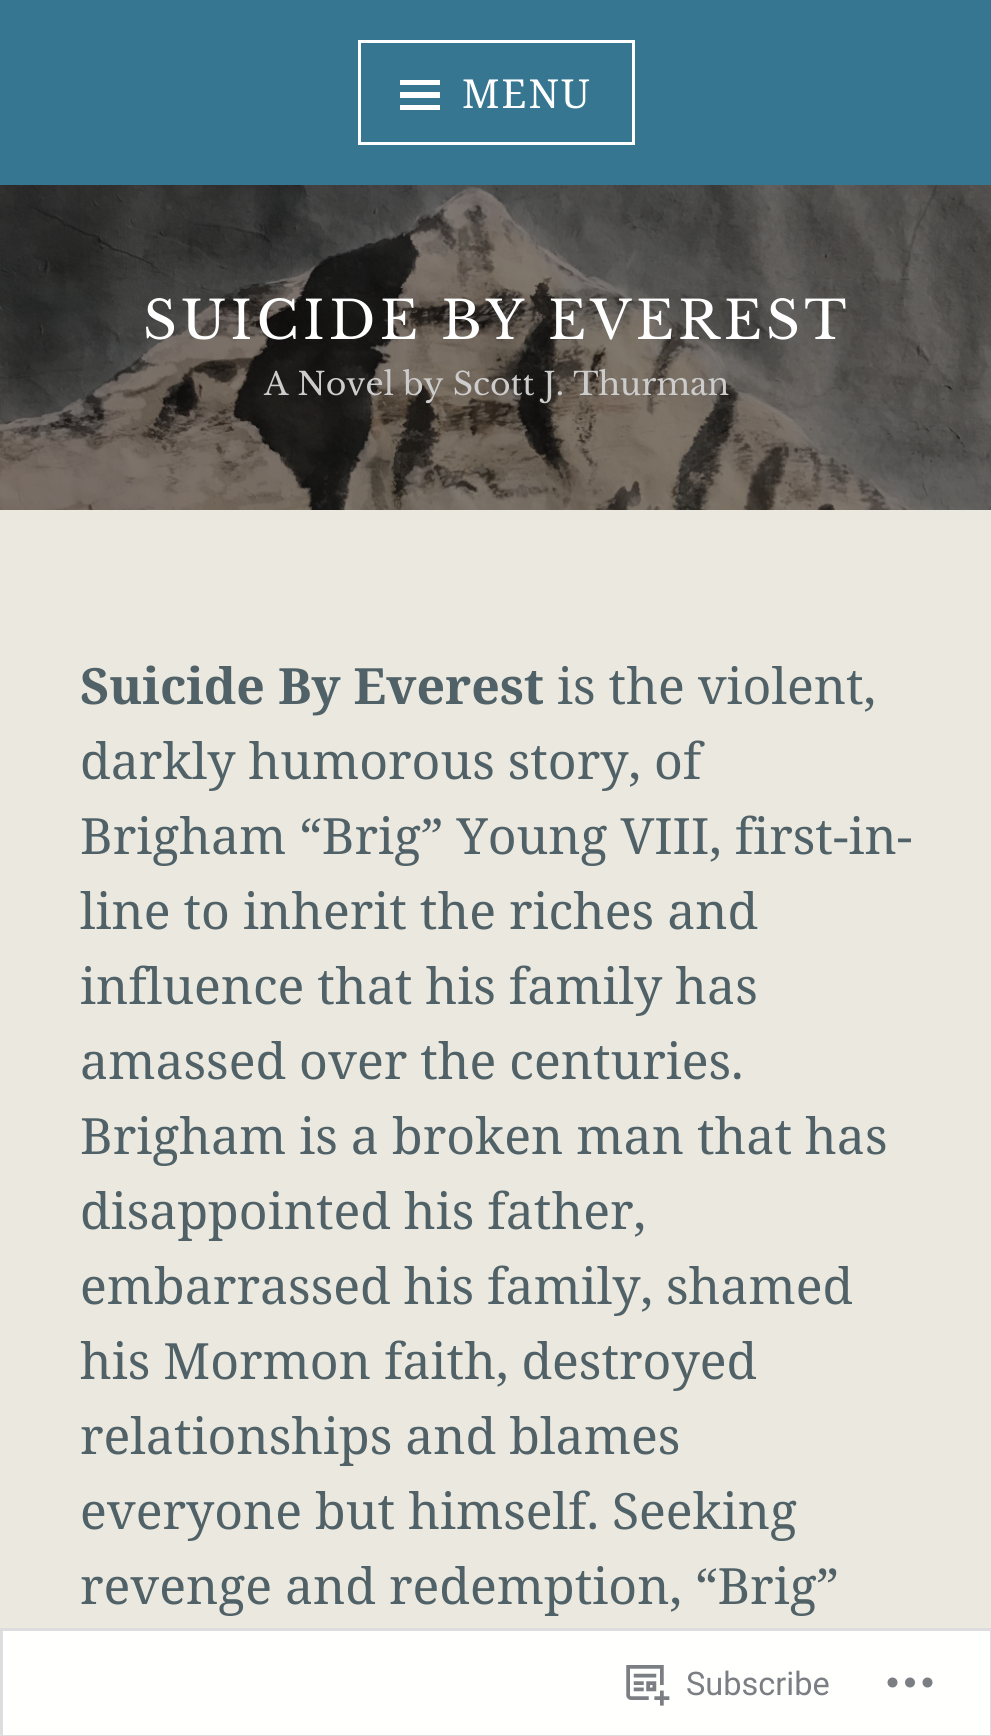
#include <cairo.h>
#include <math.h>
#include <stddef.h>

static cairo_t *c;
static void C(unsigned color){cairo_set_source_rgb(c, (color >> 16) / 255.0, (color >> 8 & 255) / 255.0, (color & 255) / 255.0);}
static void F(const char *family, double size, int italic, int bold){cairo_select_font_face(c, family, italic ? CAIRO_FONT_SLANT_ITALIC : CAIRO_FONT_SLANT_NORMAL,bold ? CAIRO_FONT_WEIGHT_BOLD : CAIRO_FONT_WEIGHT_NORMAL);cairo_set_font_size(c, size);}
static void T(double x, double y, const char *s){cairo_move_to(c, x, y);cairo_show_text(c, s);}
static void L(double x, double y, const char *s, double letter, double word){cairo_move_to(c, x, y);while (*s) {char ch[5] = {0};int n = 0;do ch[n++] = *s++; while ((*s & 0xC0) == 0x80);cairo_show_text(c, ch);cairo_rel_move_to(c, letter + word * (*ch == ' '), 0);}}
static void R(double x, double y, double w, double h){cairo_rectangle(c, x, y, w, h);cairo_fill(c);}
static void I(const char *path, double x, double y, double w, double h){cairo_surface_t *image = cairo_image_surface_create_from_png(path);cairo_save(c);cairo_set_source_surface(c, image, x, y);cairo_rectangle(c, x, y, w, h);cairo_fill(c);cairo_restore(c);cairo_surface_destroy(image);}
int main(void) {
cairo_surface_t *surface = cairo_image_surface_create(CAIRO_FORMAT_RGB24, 991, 1736);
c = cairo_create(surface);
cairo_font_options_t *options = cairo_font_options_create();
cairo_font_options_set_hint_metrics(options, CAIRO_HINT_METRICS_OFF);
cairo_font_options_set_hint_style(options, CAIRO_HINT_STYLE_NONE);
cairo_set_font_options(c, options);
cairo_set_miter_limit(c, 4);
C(0xebe8df);
cairo_paint(c);
C(0xfffffe);
R(0,1628,991,108);
C(0x367690);
R(0,0,991,185);
cairo_rectangle(c,359.5,41.5,274,102);
C(0xffffff);
cairo_set_line_width(c,3);
cairo_stroke(c);
cairo_new_path(c);
cairo_move_to(c,400,110);
cairo_line_to(c,400,105);
cairo_line_to(c,440,105);
cairo_line_to(c,440,110);
cairo_close_path(c);
cairo_move_to(c,400,80);
cairo_line_to(c,440,80);
cairo_line_to(c,440,85);
cairo_line_to(c,400,85);
cairo_close_path(c);
cairo_move_to(c,400,98);
cairo_line_to(c,400,92);
cairo_line_to(c,440,92);
cairo_line_to(c,440,98);
cairo_close_path(c);
cairo_fill(c);
F("Noto Serif",40,0,0);
L(462,108,"MENU",2,0);
I("1.png",0,185,991,325);
F("Libre Baskerville",52.5,0,0);
L(143,339,"SUICIDE BY EVEREST",4.25,0);
F("Libre Baskerville",31.5,0,0);
C(0xcccccc);
T(264,395,"A Novel by Scott J. Thurman");
F("Noto Serif",50,0,1);
C(0x506267);
T(80,704,"Suicide By Everest");
F("Noto Serif",50,0,0);
T(557,704,"is the violent,");
T(80,779,"darkly humorous story, of");
T(80,854,"Brigham “Brig” Young VIII, first-in-");
T(80,929,"line to inherit the riches and");
T(80,1004,"influence that his family has");
T(80,1079,"amassed over the centuries.");
T(80,1154,"Brigham is a broken man that has");
T(80,1229,"disappointed his father,");
T(80,1304,"embarrassed his family, shamed");
T(80,1379,"his Mormon faith, destroyed");
T(80,1454,"relationships and blames");
T(80,1529,"everyone but himself. Seeking");
T(80,1604,"revenge and redemption, “Brig”");
cairo_rectangle(c,1.5,1629.5,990,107);
cairo_set_source_rgba(c,0.863,0.863,0.871,0.98);
cairo_stroke(c);
I("2.png",626,1665,44,41);
F("Roboto",32.5,0,0);
C(0x7b7f84);
T(686,1695,"Subscribe");
I("3.png",887,1677,46,11);
cairo_surface_write_to_png(surface, "o.png");
cairo_font_options_destroy(options);
cairo_destroy(c);
cairo_surface_destroy(surface);
return 0;
}
